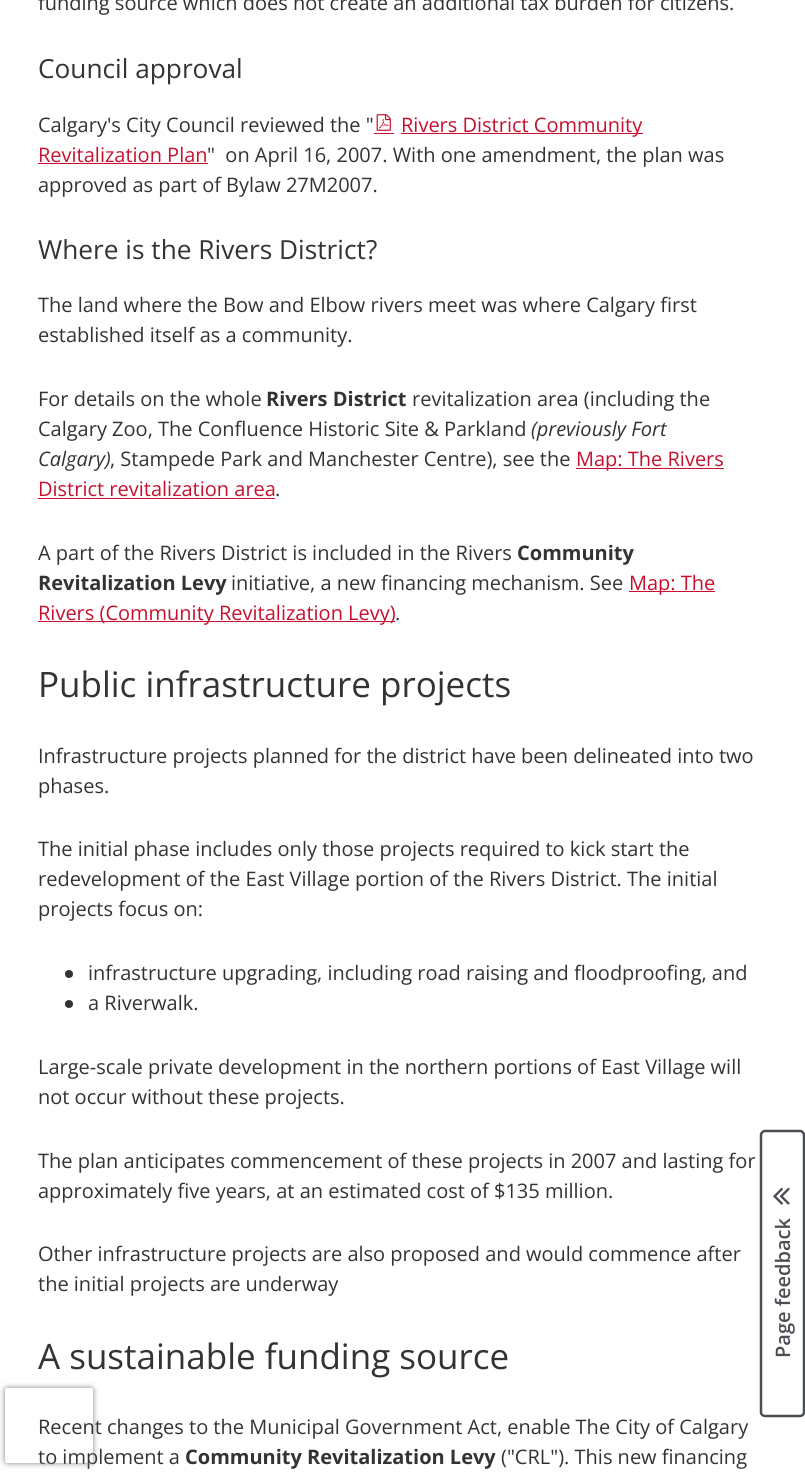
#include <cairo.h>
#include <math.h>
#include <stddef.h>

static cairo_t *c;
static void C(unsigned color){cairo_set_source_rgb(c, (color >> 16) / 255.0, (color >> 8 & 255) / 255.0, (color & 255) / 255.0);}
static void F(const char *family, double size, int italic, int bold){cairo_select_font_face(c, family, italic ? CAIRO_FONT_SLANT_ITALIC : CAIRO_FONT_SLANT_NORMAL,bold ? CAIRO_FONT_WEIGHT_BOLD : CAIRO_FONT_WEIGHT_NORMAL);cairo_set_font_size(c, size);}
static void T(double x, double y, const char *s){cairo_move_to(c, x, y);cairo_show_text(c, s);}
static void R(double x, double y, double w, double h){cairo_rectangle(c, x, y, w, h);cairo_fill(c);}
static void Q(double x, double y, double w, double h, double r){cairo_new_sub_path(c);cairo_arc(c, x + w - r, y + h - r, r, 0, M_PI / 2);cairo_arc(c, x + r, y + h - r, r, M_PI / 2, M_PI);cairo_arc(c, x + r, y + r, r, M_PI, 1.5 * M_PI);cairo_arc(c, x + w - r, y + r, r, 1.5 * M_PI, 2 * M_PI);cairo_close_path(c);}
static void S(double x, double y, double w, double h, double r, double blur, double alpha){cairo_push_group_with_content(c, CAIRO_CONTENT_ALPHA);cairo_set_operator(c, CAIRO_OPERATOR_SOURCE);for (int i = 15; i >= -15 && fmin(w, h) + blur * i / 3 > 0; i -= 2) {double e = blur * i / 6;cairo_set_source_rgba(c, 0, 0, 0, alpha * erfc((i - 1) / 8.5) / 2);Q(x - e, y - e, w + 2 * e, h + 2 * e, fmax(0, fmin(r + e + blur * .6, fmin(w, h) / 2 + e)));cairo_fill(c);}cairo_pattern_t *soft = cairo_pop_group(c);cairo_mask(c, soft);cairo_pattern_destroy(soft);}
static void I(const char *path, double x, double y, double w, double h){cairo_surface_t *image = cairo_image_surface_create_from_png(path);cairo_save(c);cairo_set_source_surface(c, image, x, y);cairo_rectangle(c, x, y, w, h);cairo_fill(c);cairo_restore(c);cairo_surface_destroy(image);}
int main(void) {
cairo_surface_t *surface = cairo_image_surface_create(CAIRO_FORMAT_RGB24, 805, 1480);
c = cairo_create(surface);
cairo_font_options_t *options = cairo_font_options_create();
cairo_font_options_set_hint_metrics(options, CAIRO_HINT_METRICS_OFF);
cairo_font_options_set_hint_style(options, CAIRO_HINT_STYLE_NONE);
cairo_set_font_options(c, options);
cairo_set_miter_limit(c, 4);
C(0xffffff);
cairo_paint(c);
F("Open Sans",20,0,0);
C(0x333333);
T(38,10,"funding source which does not create an additional tax burden for citizens.");
F("Open Sans",26.25,0,0);
T(38,78,"Council approval");
F("Open Sans",20,0,0);
T(38,132,"Calgary's City Council reviewed the \"");
I("1.png",376,114,15,17);
C(0xc8102e);
R(401,133,242,1);
T(401,132,"Rivers District Community");
R(374,133,20,1);
T(38,162,"Revitalization Plan");
R(38,163,170,1);
C(0x333333);
T(207,162,"\"  on April 16, 2007. With one amendment, the plan was");
T(38,192,"approved as part of Bylaw 27M2007.");
F("Open Sans",26.25,0,0);
T(38,259,"Where is the Rivers District?");
F("Open Sans",20,0,0);
T(38,312,"The land where the Bow and Elbow rivers meet was where Calgary first");
T(38,342,"established itself as a community.");
T(38,406,"For details on the whole");
F("Open Sans",20,0,1);
T(266,406,"Rivers District");
F("Open Sans",20,0,0);
T(412,406,"revitalization area (including the");
T(38,436,"Calgary Zoo, The Confluence Historic Site & Parkland");
F("Open Sans",20,1,0);
T(531,436,"(previously Fort");
T(38,466,"Calgary)");
F("Open Sans",20,0,0);
T(110,466,", Stampede Park and Manchester Centre), see the");
C(0xc8102e);
R(576,468,148,1);
T(576,466,"Map: The Rivers");
T(38,496,"District revitalization area");
R(38,498,237,1);
C(0x333333);
T(275,496,".");
T(38,560,"A part of the Rivers District is included in the Rivers");
F("Open Sans",20,0,1);
T(517,560,"Community");
T(38,590,"Revitalization Levy");
F("Open Sans",20,0,0);
T(231,590,"initiative, a new financing mechanism. See");
C(0xc8102e);
R(629,591,86,1);
T(629,590,"Map: The");
R(38,621,357,1);
T(38,620,"Rivers (Community Revitalization Levy)");
C(0x333333);
T(395,620,".");
F("Open Sans",35,0,0);
T(38,697,"Public infrastructure projects");
F("Open Sans",20,0,0);
T(38,763,"Infrastructure projects planned for the district have been delineated into two");
T(38,793,"phases.");
T(38,856,"The initial phase includes only those projects required to kick start the");
T(38,886,"redevelopment of the East Village portion of the Rivers District. The initial");
T(38,916,"projects focus on:");
cairo_new_path(c);
cairo_arc(c,69,974,4,0,2 * M_PI);
cairo_fill(c);
T(88,980,"infrastructure upgrading, including road raising and floodproofing, and");
cairo_new_path(c);
cairo_arc(c,69,1004,4,0,2 * M_PI);
cairo_fill(c);
T(88,1010,"a Riverwalk.");
T(38,1074,"Large-scale private development in the northern portions of East Village will");
T(38,1104,"not occur without these projects.");
T(38,1168,"The plan anticipates commencement of these projects in 2007 and lasting for");
T(38,1198,"approximately five years, at an estimated cost of $135 million.");
T(38,1261,"Other infrastructure projects are also proposed and would commence after");
T(38,1291,"the initial projects are underway");
F("Open Sans",35,0,0);
T(38,1369,"A sustainable funding source");
F("Open Sans",20,0,0);
T(38,1434,"Recent changes to the Municipal Government Act, enable The City of Calgary");
T(38,1464,"to implement a");
F("Open Sans",20,0,1);
T(185,1464,"Community Revitalization Levy");
F("Open Sans",20,0,0);
T(501,1464,"(\"CRL\"). This new financing");
cairo_new_path(c);
cairo_move_to(c,761,1412.5);
cairo_line_to(c,761,1135);
cairo_curve_to(c,761,1133,763,1131,765,1131);
cairo_line_to(c,800,1131);
cairo_curve_to(c,802,1131,804,1133,804,1135);
cairo_line_to(c,804,1412.5);
cairo_curve_to(c,804,1414.5,802,1416,800,1416);
cairo_line_to(c,765,1416);
cairo_curve_to(c,763,1416,761,1414.5,761,1412.5);
cairo_close_path(c);
C(0x4b4f55);
cairo_set_line_width(c,2.5);
cairo_stroke(c);
I("2.png",773,1187,17,18);
F("Open Sans SemiBold",20,0,0);
cairo_save(c);
cairo_translate(c,790,1358);
cairo_rotate(c,-90 * M_PI / 180);
T(0,0,"Page feedback");
cairo_restore(c);
cairo_save(c);
cairo_set_fill_rule(c,CAIRO_FILL_RULE_EVEN_ODD);
cairo_new_path(c);
cairo_move_to(c,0,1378);
cairo_line_to(c,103,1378);
cairo_line_to(c,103,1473);
cairo_line_to(c,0,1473);
cairo_close_path(c);
cairo_move_to(c,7.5,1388);
cairo_line_to(c,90.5,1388);
cairo_curve_to(c,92,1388,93,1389,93,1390.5);
cairo_line_to(c,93,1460.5);
cairo_curve_to(c,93,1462,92,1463,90.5,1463);
cairo_line_to(c,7.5,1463);
cairo_curve_to(c,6,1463,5,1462,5,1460.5);
cairo_line_to(c,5,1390.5);
cairo_curve_to(c,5,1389,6,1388,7.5,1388);
cairo_close_path(c);
cairo_clip(c);
C(0x808080);
S(5,1388,88,75,2.5,3,1);
cairo_restore(c);
cairo_surface_write_to_png(surface, "o.png");
cairo_font_options_destroy(options);
cairo_destroy(c);
cairo_surface_destroy(surface);
return 0;
}
